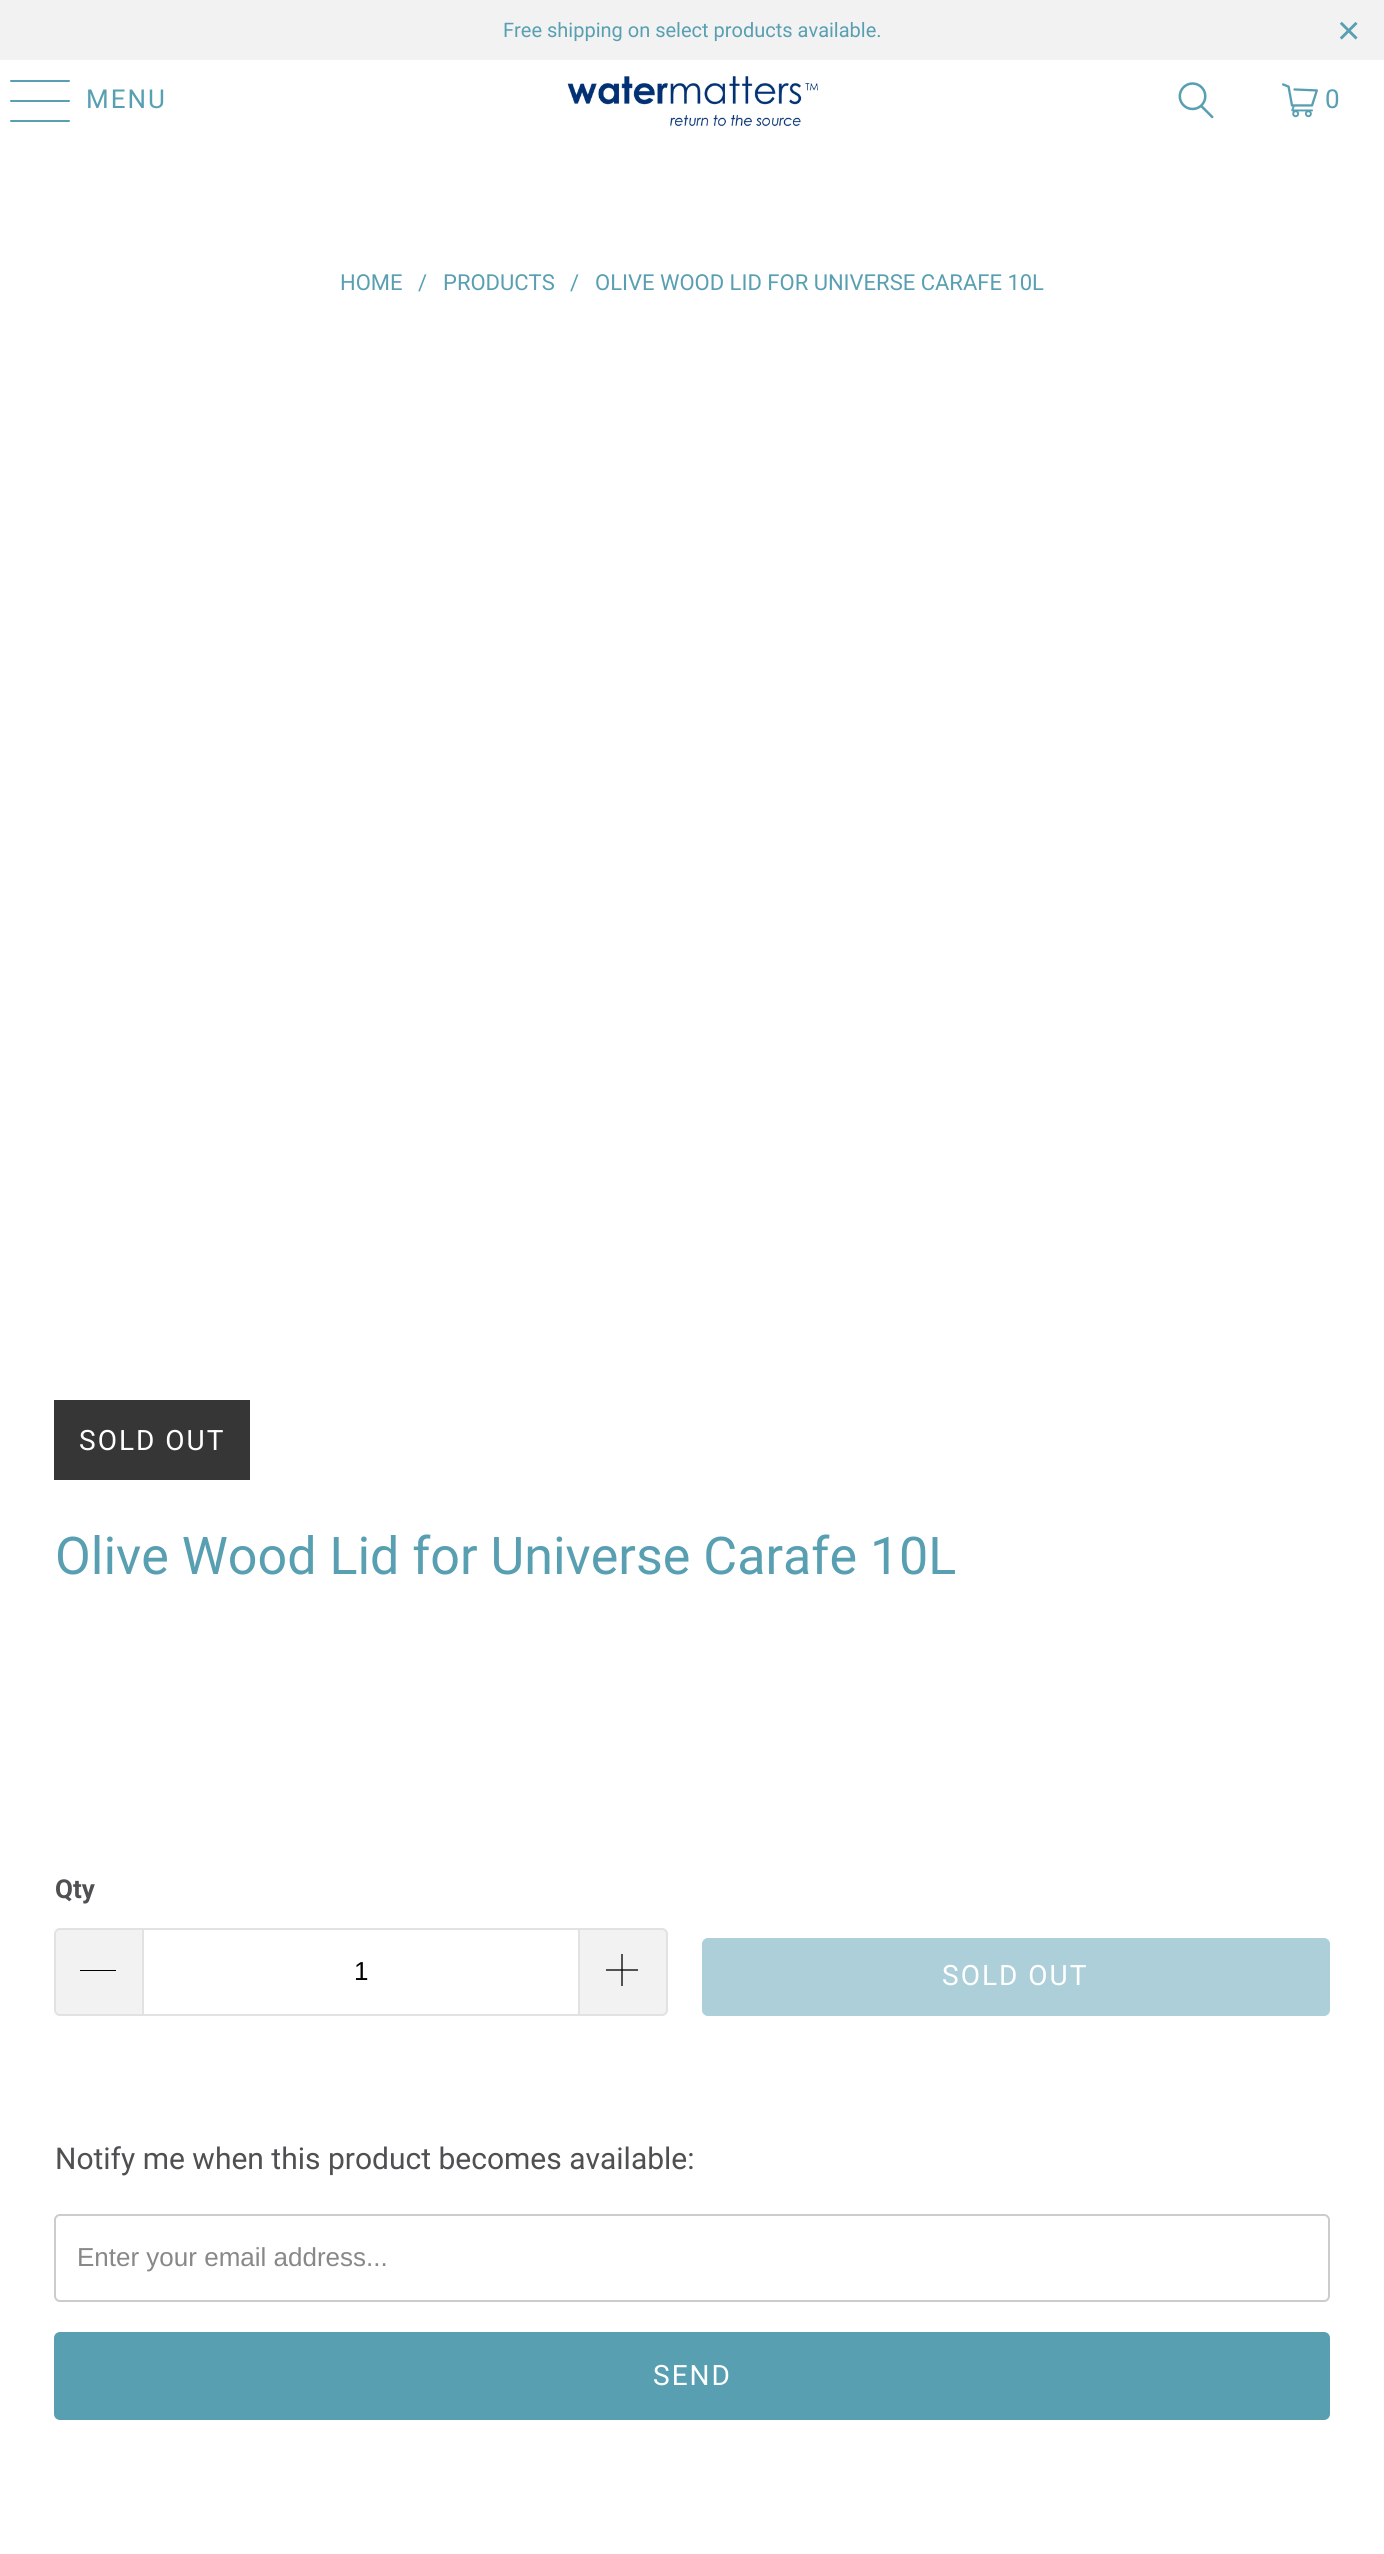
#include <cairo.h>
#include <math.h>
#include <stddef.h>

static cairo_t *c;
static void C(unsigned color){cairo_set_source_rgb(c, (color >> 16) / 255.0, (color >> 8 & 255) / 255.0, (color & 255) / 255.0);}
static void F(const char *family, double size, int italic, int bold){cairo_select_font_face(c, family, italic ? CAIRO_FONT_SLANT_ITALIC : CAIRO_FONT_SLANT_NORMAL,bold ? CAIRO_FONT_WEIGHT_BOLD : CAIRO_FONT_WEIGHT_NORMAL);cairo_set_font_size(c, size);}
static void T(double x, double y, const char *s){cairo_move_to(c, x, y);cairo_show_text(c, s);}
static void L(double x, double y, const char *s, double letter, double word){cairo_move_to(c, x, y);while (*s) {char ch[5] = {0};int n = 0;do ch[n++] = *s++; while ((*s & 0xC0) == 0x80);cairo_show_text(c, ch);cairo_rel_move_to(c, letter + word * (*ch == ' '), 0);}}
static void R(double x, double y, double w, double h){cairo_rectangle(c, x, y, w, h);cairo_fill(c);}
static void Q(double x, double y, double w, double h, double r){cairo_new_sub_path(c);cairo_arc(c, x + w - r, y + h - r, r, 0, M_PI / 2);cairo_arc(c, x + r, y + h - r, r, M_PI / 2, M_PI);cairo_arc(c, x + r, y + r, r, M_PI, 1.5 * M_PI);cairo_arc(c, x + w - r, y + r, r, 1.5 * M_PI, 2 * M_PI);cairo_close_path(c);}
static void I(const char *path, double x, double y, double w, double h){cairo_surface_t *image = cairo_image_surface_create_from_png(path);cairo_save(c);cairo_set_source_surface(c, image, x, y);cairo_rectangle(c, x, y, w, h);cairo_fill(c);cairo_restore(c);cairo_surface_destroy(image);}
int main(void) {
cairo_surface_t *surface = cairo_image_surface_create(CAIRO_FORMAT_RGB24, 1384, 2554);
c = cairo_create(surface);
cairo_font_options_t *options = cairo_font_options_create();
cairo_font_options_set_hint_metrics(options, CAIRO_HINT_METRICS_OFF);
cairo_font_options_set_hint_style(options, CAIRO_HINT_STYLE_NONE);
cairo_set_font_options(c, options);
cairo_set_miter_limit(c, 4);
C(0xffffff);
cairo_paint(c);
C(0xf2f2f2);
R(0,0,1384,60);
F("Roboto",20,0,0);
C(0x589fb2);
T(503,37,"Free shipping on select products available.");
F("Liberation Sans",40,0,0);
T(1337,44,"×");
Q(10,80,60,2,1);
cairo_fill(c);
Q(10,100,60,2,1);
cairo_fill(c);
Q(10,120,60,2,1);
cairo_fill(c);
F("Roboto",26,0,0);
L(86,108,"MENU",2,0);
I("1.png",567,76,251,51);
I("2.png",1178,82,36,37);
I("3.png",1282,83,36,35);
L(1325,108,"0",2,0);
F("Roboto",22,0,0);
T(340,290,"HOME");
T(418,290,"/");
T(443,290,"PRODUCTS");
T(570,290,"/");
T(595,290,"OLIVE WOOD LID FOR UNIVERSE CARAFE 10L");
C(0x363636);
R(54,1400,196,80);
F("Roboto",28,0,0);
C(0xffffff);
L(79,1450,"SOLD OUT",2,0);
F("Roboto",52,0,0);
C(0x589fb2);
T(55,1574,"Olive Wood Lid for Universe Carafe 10L");
F("Roboto",26,0,1);
C(0x4e5051);
T(55,1898,"Qty");
C(0xf2f2f2);
cairo_new_path(c);
cairo_move_to(c,60,1928);
cairo_line_to(c,142,1928);
cairo_line_to(c,142,2016);
cairo_line_to(c,60,2016);
cairo_curve_to(c,56.5,2016,54,2013.5,54,2010);
cairo_line_to(c,54,1934);
cairo_curve_to(c,54,1930.5,56.5,1928,60,1928);
cairo_close_path(c);
cairo_fill(c);
C(0xe2e2e2);
cairo_set_fill_rule(c,CAIRO_FILL_RULE_EVEN_ODD);
cairo_new_path(c);
cairo_move_to(c,60,1928);
cairo_line_to(c,142,1928);
cairo_line_to(c,142,2016);
cairo_line_to(c,60,2016);
cairo_curve_to(c,57,2016,54,2013,54,2010);
cairo_line_to(c,54,1934);
cairo_curve_to(c,54,1931,57,1928,60,1928);
cairo_close_path(c);
cairo_move_to(c,60,1930);
cairo_line_to(c,142,1930);
cairo_line_to(c,142,2014);
cairo_line_to(c,60,2014);
cairo_curve_to(c,58,2014,56,2012,56,2010);
cairo_line_to(c,56,1934);
cairo_curve_to(c,56,1932,58,1930,60,1930);
cairo_close_path(c);
cairo_fill(c);
C(0x000000);
R(80,1970,36,1);
cairo_rectangle(c,143,1929,436,86);
C(0xe2e2e2);
cairo_stroke(c);
F("Liberation Sans",26,0,0);
C(0x000000);
T(354,1980,"1");
C(0xf2f2f2);
cairo_new_path(c);
cairo_move_to(c,580,1928);
cairo_line_to(c,662,1928);
cairo_curve_to(c,665.5,1928,668,1930.5,668,1934);
cairo_line_to(c,668,2010);
cairo_curve_to(c,668,2013.5,665.5,2016,662,2016);
cairo_line_to(c,580,2016);
cairo_close_path(c);
cairo_fill(c);
C(0xe2e2e2);
cairo_new_path(c);
cairo_move_to(c,580,1928);
cairo_line_to(c,662,1928);
cairo_curve_to(c,665,1928,668,1931,668,1934);
cairo_line_to(c,668,2010);
cairo_curve_to(c,668,2013,665,2016,662,2016);
cairo_line_to(c,580,2016);
cairo_close_path(c);
cairo_move_to(c,580,1930);
cairo_line_to(c,662,1930);
cairo_curve_to(c,664,1930,666,1932,666,1934);
cairo_line_to(c,666,2010);
cairo_curve_to(c,666,2012,664,2014,662,2014);
cairo_line_to(c,580,2014);
cairo_close_path(c);
cairo_fill(c);
I("4.png",606,1954,32,32);
C(0xaccfd9);
Q(703,1939,626,76,5);
cairo_fill_preserve(c);
cairo_stroke(c);
F("Roboto",28,0,0);
C(0xffffff);
L(942,1985,"SOLD OUT",2,0);
F("Roboto",30,0,0);
C(0x4e5051);
T(55,2169,"Notify me when this product becomes available:");
Q(55,2215,1274,86,5);
C(0xcccccc);
cairo_stroke(c);
F("Liberation Sans",26,0,0);
C(0x888888);
T(77,2266,"Enter your email address...");
C(0x589fb2);
Q(55,2333,1274,86,5);
cairo_fill_preserve(c);
cairo_stroke(c);
F("Roboto",28,0,0);
C(0xffffff);
L(653,2385,"SEND",2,0);
cairo_surface_write_to_png(surface, "o.png");
cairo_font_options_destroy(options);
cairo_destroy(c);
cairo_surface_destroy(surface);
return 0;
}
